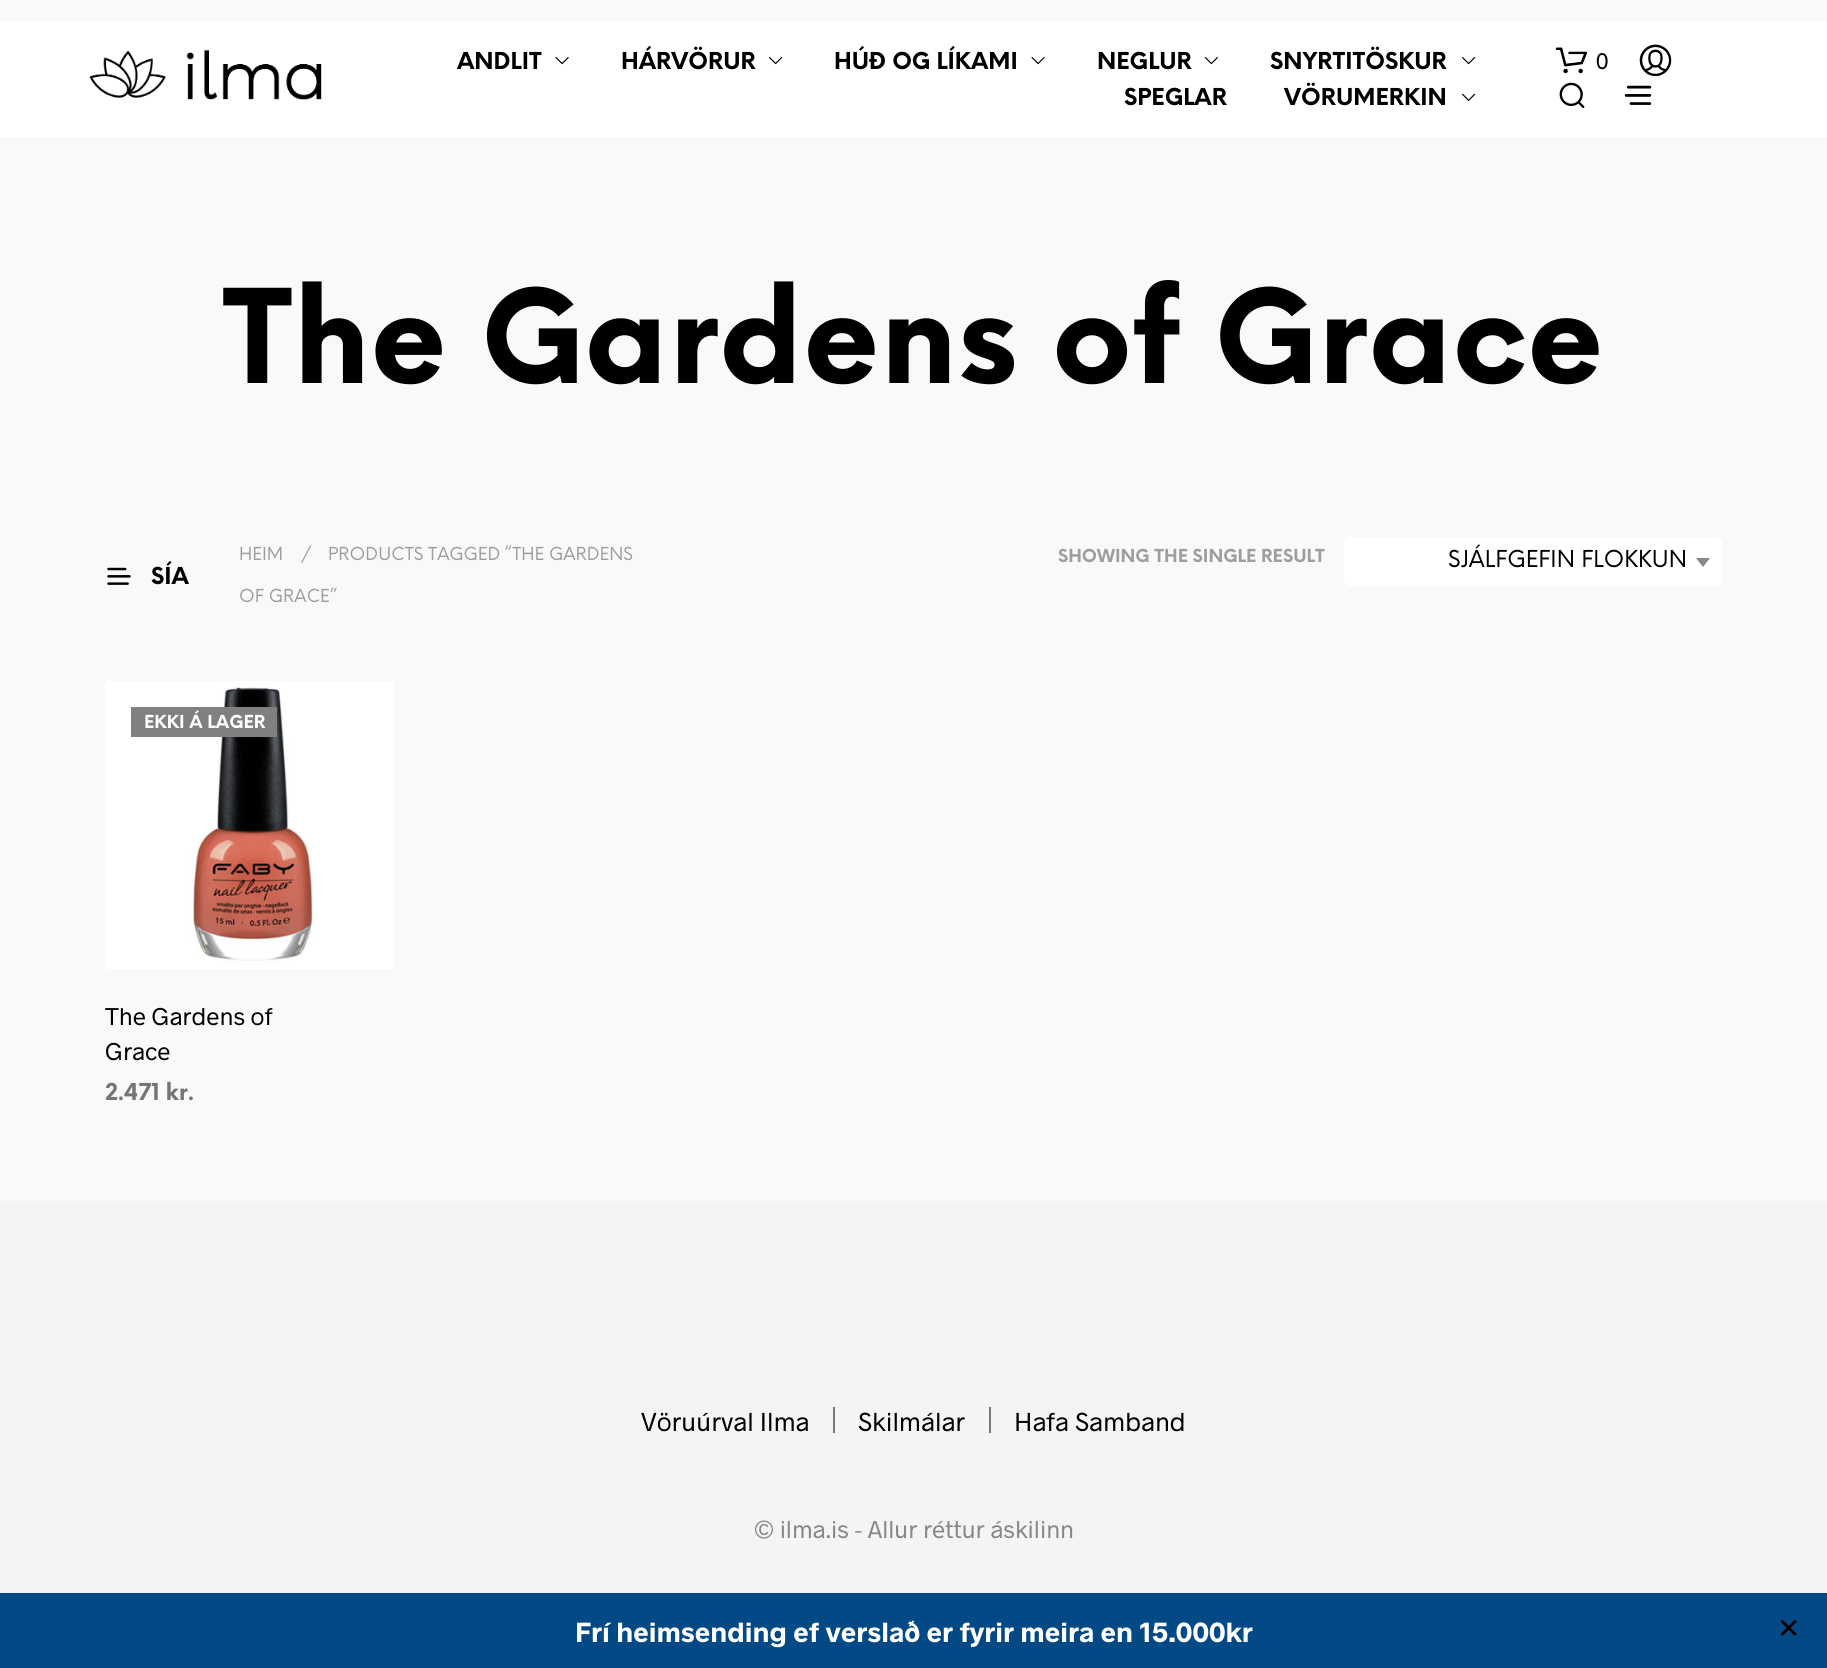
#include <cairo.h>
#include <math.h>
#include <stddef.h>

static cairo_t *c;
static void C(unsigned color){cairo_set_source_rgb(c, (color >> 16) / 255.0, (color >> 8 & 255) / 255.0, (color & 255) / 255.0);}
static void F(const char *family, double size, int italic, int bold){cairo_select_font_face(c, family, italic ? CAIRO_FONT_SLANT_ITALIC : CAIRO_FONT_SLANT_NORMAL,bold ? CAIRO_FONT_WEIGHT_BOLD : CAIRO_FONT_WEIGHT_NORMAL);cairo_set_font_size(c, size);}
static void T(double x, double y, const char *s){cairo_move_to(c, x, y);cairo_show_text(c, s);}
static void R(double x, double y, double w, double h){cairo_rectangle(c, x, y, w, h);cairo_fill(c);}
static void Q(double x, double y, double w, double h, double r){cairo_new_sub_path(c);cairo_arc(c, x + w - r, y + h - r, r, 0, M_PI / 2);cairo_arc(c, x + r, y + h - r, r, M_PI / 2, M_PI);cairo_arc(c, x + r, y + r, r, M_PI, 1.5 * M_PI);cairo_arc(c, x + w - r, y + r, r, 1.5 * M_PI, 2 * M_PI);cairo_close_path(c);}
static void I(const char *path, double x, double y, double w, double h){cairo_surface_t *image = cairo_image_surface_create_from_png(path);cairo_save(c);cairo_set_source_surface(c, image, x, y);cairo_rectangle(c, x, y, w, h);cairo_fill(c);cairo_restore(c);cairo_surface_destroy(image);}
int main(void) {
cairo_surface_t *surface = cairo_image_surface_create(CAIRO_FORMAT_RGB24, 1827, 1668);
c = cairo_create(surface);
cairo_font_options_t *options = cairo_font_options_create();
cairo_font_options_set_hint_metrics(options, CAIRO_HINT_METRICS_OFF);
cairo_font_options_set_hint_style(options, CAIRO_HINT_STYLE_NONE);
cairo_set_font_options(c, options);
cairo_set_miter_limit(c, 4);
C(0xf9f9f9);
cairo_paint(c);
C(0xffffff);
R(0,21,1827,116);
I("1.png",89,49,233,51);
F("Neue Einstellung",22.75,0,1);
C(0x000000);
T(457,69,"ANDLIT");
I("2.png",555,57,14,8);
T(621,69,"HÁRVÖRUR");
I("3.png",769,57,14,8);
T(834,69,"HÚÐ OG LÍKAMI");
I("2.png",1031,57,14,8);
T(1097,69,"NEGLUR");
I("4.png",1204,57,14,8);
T(1270,69,"SNYRTITÖSKUR");
I("3.png",1462,57,14,8);
T(1124,105,"SPEGLAR");
T(1284,105,"VÖRUMERKIN");
I("5.png",1462,93,14,8);
I("6.png",1555,47,33,27);
F("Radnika",22.75,0,0);
T(1596,69,"0");
I("7.png",1639,44,33,33);
I("8.png",1559,82,26,26);
I("9.png",1624,85,28,20);
F("Neue Einstellung",127,0,1);
T(222,383,"The Gardens of Grace");
I("10.png",107,567,24,18);
F("Neue Einstellung",22.75,0,1);
T(151,584,"SÍA");
F("Neue Einstellung",17.5,0,0);
C(0x9e9e9e);
T(239,560,"HEIM");
T(301,560,"/");
T(328,560,"PRODUCTS TAGGED “THE GARDENS");
T(239,602,"OF GRACE”");
F("Neue Einstellung",17.5,0,1);
T(1058,562,"SHOWING THE SINGLE RESULT");
C(0xffffff);
Q(1344,537,378,49,7);
cairo_fill(c);
F("Neue Einstellung",22.75,0,0);
C(0x000000);
T(1448,567,"SJÁLFGEFIN FLOKKUN");
C(0x888888);
cairo_new_path(c);
cairo_move_to(c,1696,558);
cairo_line_to(c,1710,558);
cairo_line_to(c,1703,567);
cairo_close_path(c);
cairo_fill(c);
I("11.png",105,681,289,288);
C(0x808080);
R(131,707,146,30);
F("Neue Einstellung",17.5,0,1);
C(0xffffff);
T(144,728,"EKKI Á LAGER");
F("Radnika",24.5,0,0);
C(0x000000);
T(105,1025,"The Gardens of");
T(105,1060,"Grace");
F("Neue Einstellung",22.75,0,1);
C(0x757575);
T(105,1100,"2.471 kr.");
C(0xf4f4f4);
R(0,1201,1827,392);
F("Radnika",26.25,0,0);
C(0x000000);
T(641,1431,"Vöruúrval Ilma");
C(0x7a7a7a);
R(833,1407,2,26);
C(0x000000);
T(858,1431,"Skilmálar");
C(0x7a7a7a);
R(989,1407,2,26);
C(0x000000);
T(1014,1431,"Hafa Samband");
F("Radnika",24.5,0,0);
C(0x868686);
T(754,1538,"© ilma.is - Allur réttur áskilinn");
C(0x024985);
R(0,1593,1827,75);
F("Radnika",28,0,1);
C(0xffffff);
T(575,1642,"Frí heimsending ef verslað er fyrir meira en 15.000kr");
F("DejaVu Sans",28,0,0);
C(0x000000);
T(1777,1638,"✕");
cairo_surface_write_to_png(surface, "o.png");
cairo_font_options_destroy(options);
cairo_destroy(c);
cairo_surface_destroy(surface);
return 0;
}
